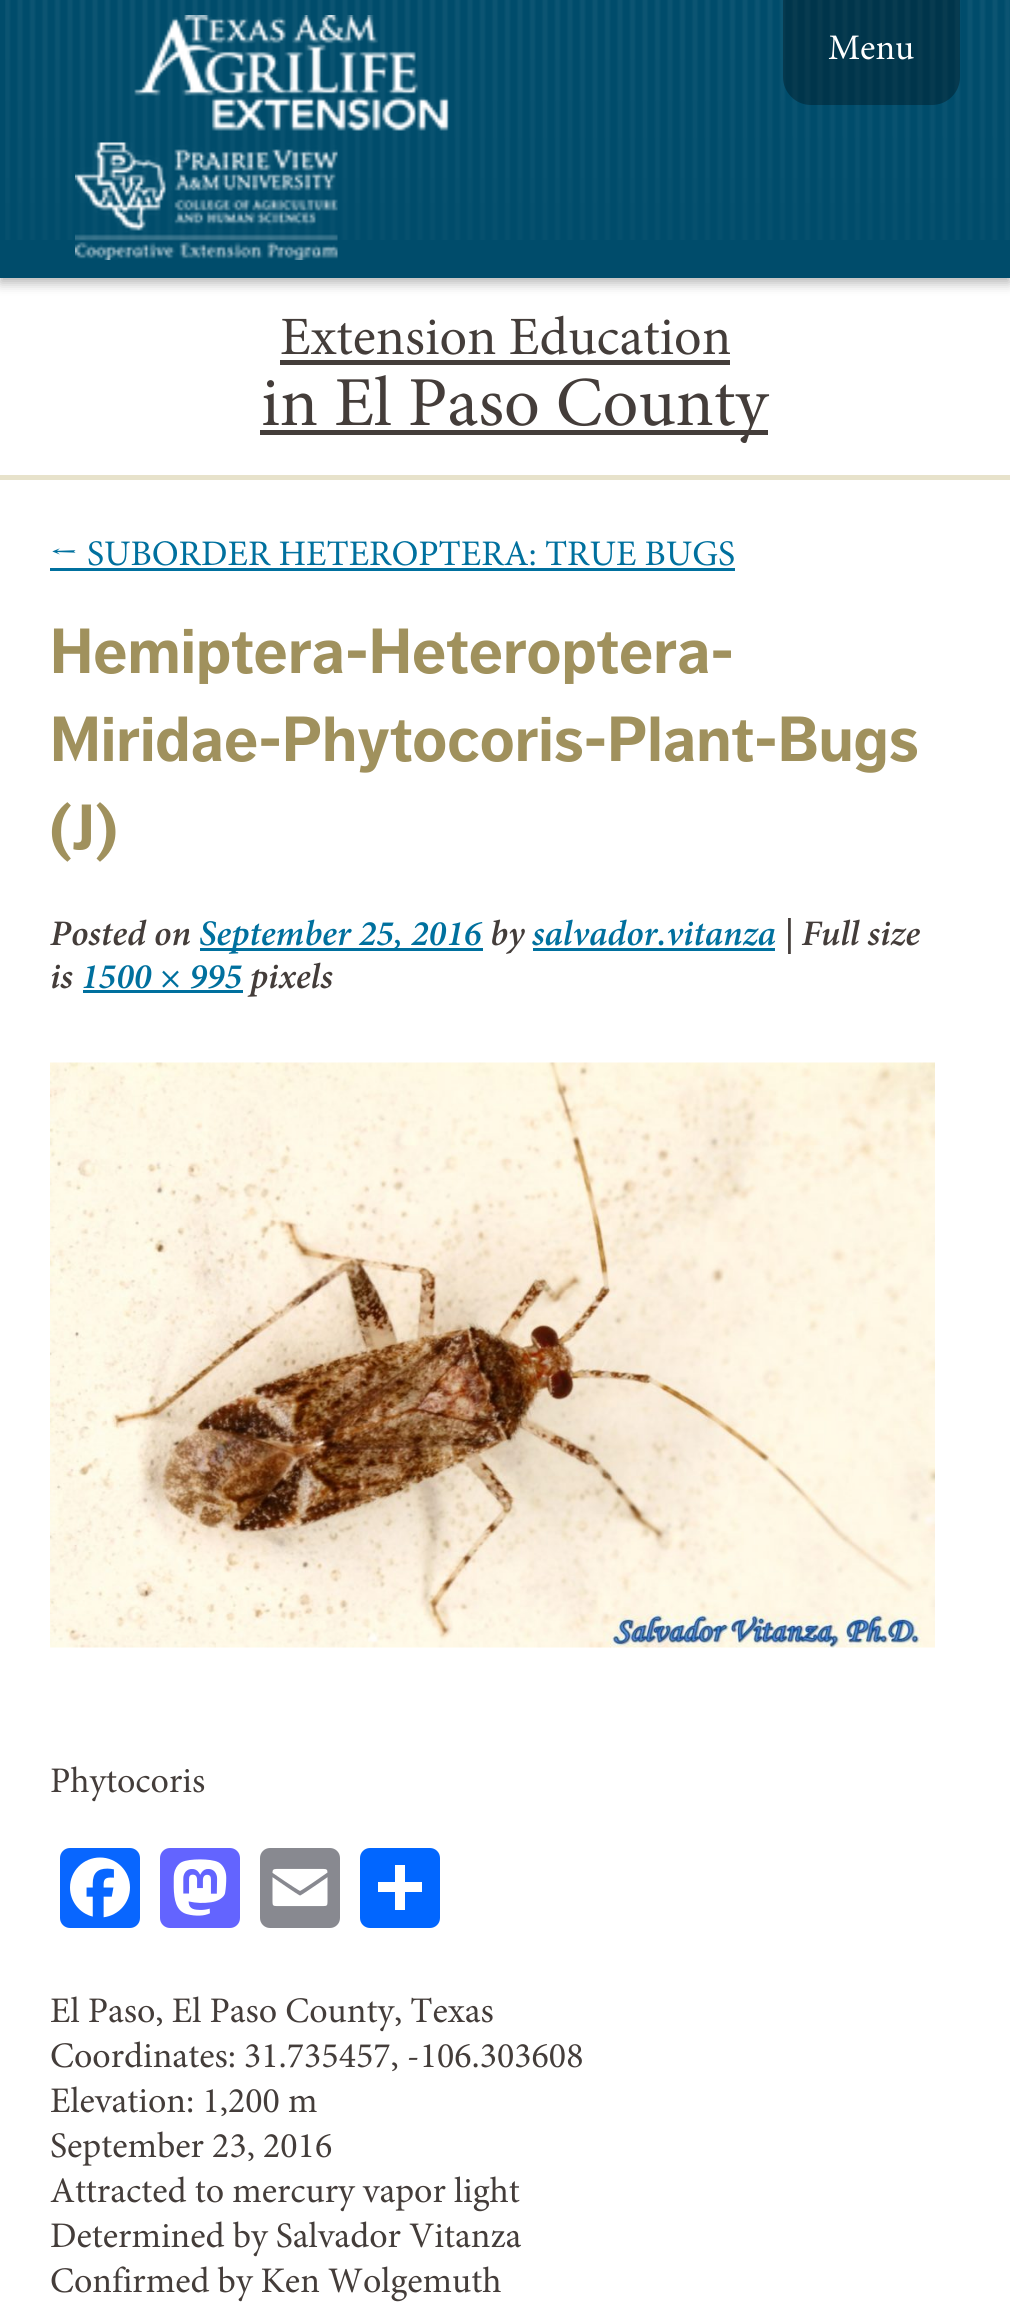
#include <cairo.h>
#include <math.h>
#include <stddef.h>

static cairo_t *c;
static void C(unsigned color){cairo_set_source_rgb(c, (color >> 16) / 255.0, (color >> 8 & 255) / 255.0, (color & 255) / 255.0);}
static void F(const char *family, double size, int italic, int bold){cairo_select_font_face(c, family, italic ? CAIRO_FONT_SLANT_ITALIC : CAIRO_FONT_SLANT_NORMAL,bold ? CAIRO_FONT_WEIGHT_BOLD : CAIRO_FONT_WEIGHT_NORMAL);cairo_set_font_size(c, size);}
static void T(double x, double y, const char *s){cairo_move_to(c, x, y);cairo_show_text(c, s);}
static void R(double x, double y, double w, double h){cairo_rectangle(c, x, y, w, h);cairo_fill(c);}
static void Q(double x, double y, double w, double h, double r){cairo_new_sub_path(c);cairo_arc(c, x + w - r, y + h - r, r, 0, M_PI / 2);cairo_arc(c, x + r, y + h - r, r, M_PI / 2, M_PI);cairo_arc(c, x + r, y + r, r, M_PI, 1.5 * M_PI);cairo_arc(c, x + w - r, y + r, r, 1.5 * M_PI, 2 * M_PI);cairo_close_path(c);}
static void S(double x, double y, double w, double h, double r, double blur, double alpha){cairo_push_group_with_content(c, CAIRO_CONTENT_ALPHA);cairo_set_operator(c, CAIRO_OPERATOR_SOURCE);for (int i = 15; i >= -15 && fmin(w, h) + blur * i / 3 > 0; i -= 2) {double e = blur * i / 6;cairo_set_source_rgba(c, 0, 0, 0, alpha * erfc((i - 1) / 8.5) / 2);Q(x - e, y - e, w + 2 * e, h + 2 * e, fmax(0, fmin(r + e + blur * .6, fmin(w, h) / 2 + e)));cairo_fill(c);}cairo_pattern_t *soft = cairo_pop_group(c);cairo_mask(c, soft);cairo_pattern_destroy(soft);}
static void I(const char *path, double x, double y, double w, double h){cairo_surface_t *image = cairo_image_surface_create_from_png(path);cairo_save(c);cairo_set_source_surface(c, image, x, y);cairo_rectangle(c, x, y, w, h);cairo_fill(c);cairo_restore(c);cairo_surface_destroy(image);}
int main(void) {
cairo_surface_t *surface = cairo_image_surface_create(CAIRO_FORMAT_RGB24, 1010, 2322);
c = cairo_create(surface);
cairo_font_options_t *options = cairo_font_options_create();
cairo_font_options_set_hint_metrics(options, CAIRO_HINT_METRICS_OFF);
cairo_font_options_set_hint_style(options, CAIRO_HINT_STYLE_NONE);
cairo_set_font_options(c, options);
cairo_set_miter_limit(c, 4);
C(0xffffff);
cairo_paint(c);
C(0x060606);
S(0,5,1010,278,0,6,.3);
C(0x004c6b);
R(0,0,1010,278);
I("1.png",5,0,1005,240);
I("2.png",134,15,315,116);
I("3.png",75,142,263,118);
cairo_set_source_rgba(c,0.004,0.004,0.004,0.3);
Q(783,-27,177,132,28);
cairo_fill(c);
F("Minion",36,0,0);
C(0xffffff);
T(828,59,"Menu");
F("Minion",54,0,0);
C(0x443d3a);
T(280,354,"Extension Education");
R(280,360,450,5);
R(260,430,508,5);
F("Minion",70.25,0,0);
T(261,425,"in El Paso County");
C(0xe7e2cb);
R(0,475,1010,5);
F("Caladea",36,0,0);
C(0x00709e);
T(50,565,"←");
F("Minion",36,0,0);
T(87,565,"SUBORDER HETEROPTERA: TRUE BUGS");
R(50,568,685,3);
F("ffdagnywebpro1",63,0,1);
C(0xa0915d);
T(50,673,"Hemiptera-Heteroptera-");
T(50,761,"Miridae-Phytocoris-Plant-Bugs");
T(50,849,"(J)");
F("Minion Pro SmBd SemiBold",36,1,0);
C(0x443d3a);
T(50,945,"Posted on");
C(0x00709e);
R(200,948,283,3);
T(199,945,"September 25, 2016");
C(0x443d3a);
T(490,945,"by");
C(0x00709e);
R(533,948,242,3);
T(532,945,"salvador.vitanza");
C(0x443d3a);
T(784,945,"| Full size");
T(50,988,"is");
C(0x00709e);
T(81,988,"1500 × 995");
R(83,990,160,3);
C(0x443d3a);
T(250,988,"pixels");
I("4.png",50,1062,885,586);
F("Minion",36,0,0);
T(50,1792,"Phytocoris");
C(0x0866ff);
Q(60,1848,80,80,10);
cairo_fill(c);
I("5.png",70,1857,60,61);
C(0x6364ff);
Q(160,1848,80,80,10);
cairo_fill(c);
I("6.png",173,1859,54,57);
C(0x888990);
Q(260,1848,80,80,10);
cairo_fill(c);
I("7.png",272,1868,56,39);
C(0x0166ff);
Q(360,1848,80,80,10);
cairo_fill(c);
C(0xffffff);
R(395,1865,10,45);
R(378,1882,44,10);
C(0x443d3a);
T(50,2022,"El Paso, El Paso County, Texas");
T(50,2067,"Coordinates: 31.735457, -106.303608");
T(50,2112,"Elevation: 1,200 m");
T(50,2157,"September 23, 2016");
T(50,2202,"Attracted to mercury vapor light");
T(50,2247,"Determined by Salvador Vitanza");
T(50,2292,"Confirmed by Ken Wolgemuth");
cairo_surface_write_to_png(surface, "o.png");
cairo_font_options_destroy(options);
cairo_destroy(c);
cairo_surface_destroy(surface);
return 0;
}
